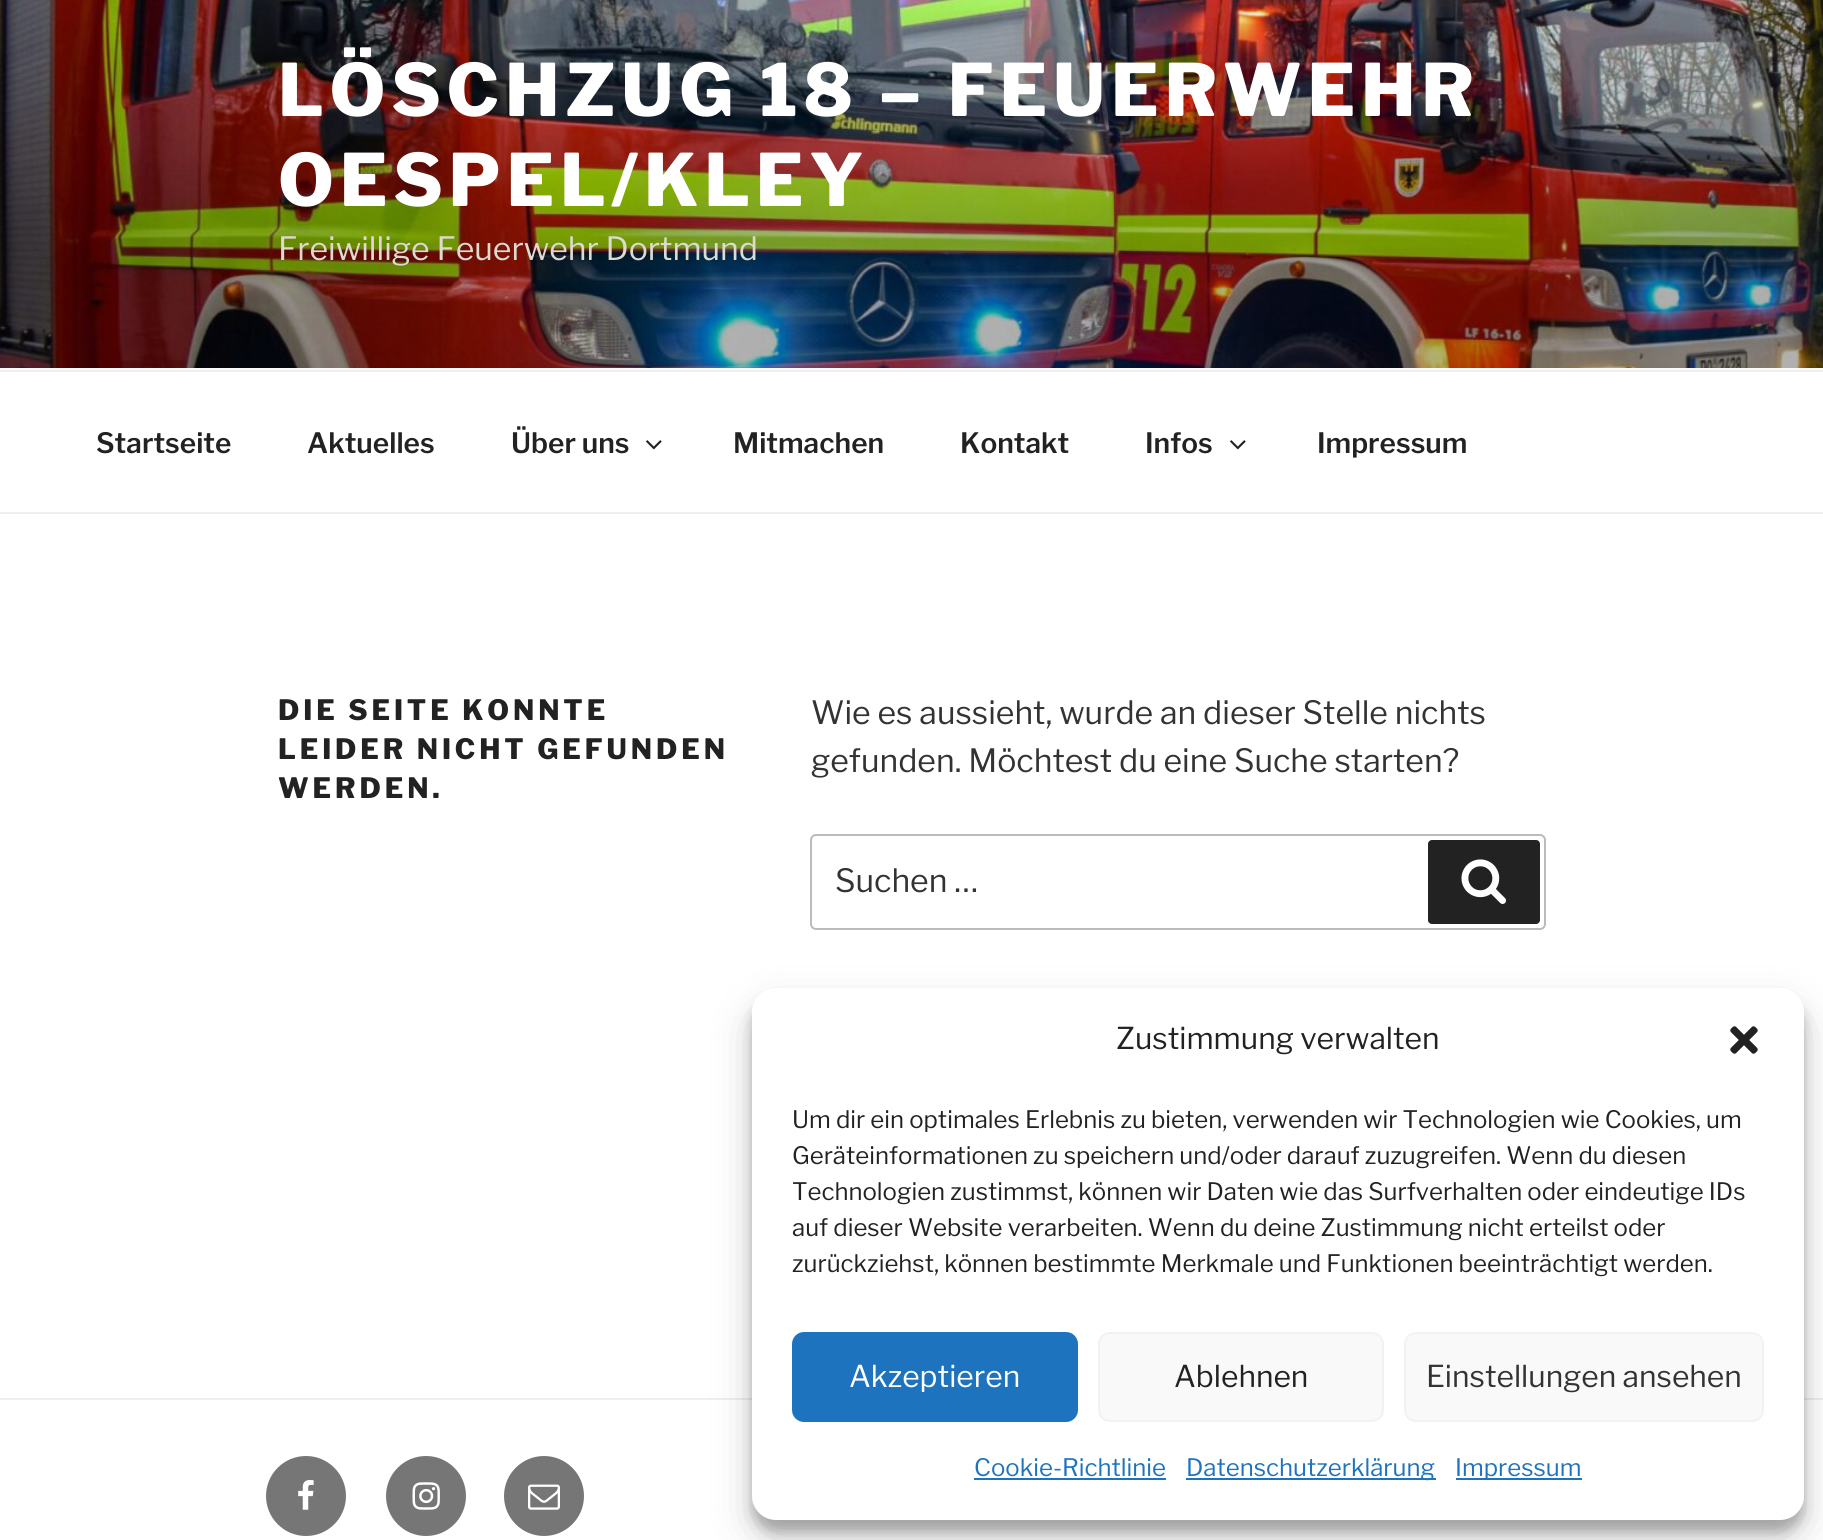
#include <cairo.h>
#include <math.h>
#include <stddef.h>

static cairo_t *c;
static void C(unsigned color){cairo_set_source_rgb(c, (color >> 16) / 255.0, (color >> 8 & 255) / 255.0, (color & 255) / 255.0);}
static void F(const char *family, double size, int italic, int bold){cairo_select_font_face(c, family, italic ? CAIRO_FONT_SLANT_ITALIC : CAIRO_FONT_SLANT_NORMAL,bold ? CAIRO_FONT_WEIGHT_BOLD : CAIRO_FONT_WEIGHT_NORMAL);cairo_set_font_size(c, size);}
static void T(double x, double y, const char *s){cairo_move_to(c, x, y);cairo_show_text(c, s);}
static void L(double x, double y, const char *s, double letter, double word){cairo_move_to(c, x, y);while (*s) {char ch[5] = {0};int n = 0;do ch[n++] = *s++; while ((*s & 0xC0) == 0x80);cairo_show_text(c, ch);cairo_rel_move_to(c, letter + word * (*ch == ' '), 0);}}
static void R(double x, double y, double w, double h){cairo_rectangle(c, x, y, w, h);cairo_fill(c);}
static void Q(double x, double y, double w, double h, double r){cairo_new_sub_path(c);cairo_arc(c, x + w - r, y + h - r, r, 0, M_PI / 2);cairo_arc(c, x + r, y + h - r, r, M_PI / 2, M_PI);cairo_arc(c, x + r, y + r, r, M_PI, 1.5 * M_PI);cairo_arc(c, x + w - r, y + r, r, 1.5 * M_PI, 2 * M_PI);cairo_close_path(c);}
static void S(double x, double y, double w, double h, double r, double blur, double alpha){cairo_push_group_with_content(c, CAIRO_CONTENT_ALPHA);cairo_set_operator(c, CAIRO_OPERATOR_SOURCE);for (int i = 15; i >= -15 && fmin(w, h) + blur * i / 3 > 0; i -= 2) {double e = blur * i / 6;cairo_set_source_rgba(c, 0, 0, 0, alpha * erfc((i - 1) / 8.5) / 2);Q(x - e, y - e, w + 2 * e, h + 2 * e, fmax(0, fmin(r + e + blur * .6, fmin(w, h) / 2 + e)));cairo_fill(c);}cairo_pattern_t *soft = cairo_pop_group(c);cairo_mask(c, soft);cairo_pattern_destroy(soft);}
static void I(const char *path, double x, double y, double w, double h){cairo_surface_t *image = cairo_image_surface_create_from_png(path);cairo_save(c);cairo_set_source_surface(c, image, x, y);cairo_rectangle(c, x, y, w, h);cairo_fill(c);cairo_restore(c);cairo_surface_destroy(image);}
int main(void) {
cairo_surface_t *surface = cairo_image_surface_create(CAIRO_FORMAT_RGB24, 1823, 1540);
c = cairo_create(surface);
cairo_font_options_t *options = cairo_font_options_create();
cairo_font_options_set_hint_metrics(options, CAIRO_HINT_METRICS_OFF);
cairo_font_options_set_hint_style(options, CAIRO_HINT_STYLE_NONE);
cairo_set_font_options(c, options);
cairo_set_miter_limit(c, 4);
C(0xffffff);
cairo_paint(c);
C(0xfafafa);
R(0,368,1823,2);
I("1.png",0,0,1823,368);
F("Libre Franklin Thin",72,0,0);
C(0xffffff);
L(278,116,"LÖSCHZUG 18 – FEUERWEHR",5.75,0);
L(278,206,"OESPEL/KLEY",5.75,0);
F("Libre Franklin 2 Thin",32,0,0);
C(0xdddad0);
T(278,260,"Freiwillige Feuerwehr Dortmund");
C(0xeeeeee);
R(0,370,1823,2);
R(0,512,1823,2);
F("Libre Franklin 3 Thin",28,0,0);
C(0x222222);
T(96,453,"Startseite");
T(307,453,"Aktuelles");
T(511,453,"Über uns");
I("2.png",646,440,16,10);
T(733,453,"Mitmachen");
T(960,453,"Kontakt");
T(1145,453,"Infos");
I("2.png",1230,440,16,10);
T(1317,453,"Impressum");
F("Libre Franklin Thin",28,0,0);
L(278,720,"DIE SEITE KONNTE",3.9,0);
L(278,759,"LEIDER NICHT GEFUNDEN",3.9,0);
L(278,798,"WERDEN.",3.9,0);
F("Libre Franklin 2 Thin",32,0,0);
C(0x333333);
T(811,724,"Wie es aussieht, wurde an dieser Stelle nichts");
T(811,772,"gefunden. Möchtest du eine Suche starten?");
Q(811,835,734,94,5);
C(0xbbbbbb);
cairo_stroke(c);
C(0x333333);
T(835,892,"Suchen …");
C(0x222222);
Q(1428,840,112,84,4);
cairo_fill(c);
I("3.png",1461,859,46,45);
C(0xeeeeee);
R(0,1398,1823,2);
C(0x767676);
cairo_arc(c,306,1496,40,0,2 * M_PI);
cairo_fill(c);
I("4.png",298,1480,16,30);
cairo_arc(c,426,1496,40,0,2 * M_PI);
cairo_fill(c);
I("5.png",412,1482,28,28);
cairo_arc(c,544,1496,40,0,2 * M_PI);
cairo_fill(c);
I("6.png",528,1484,32,26);
C(0x000000);
S(752,1000,1052,532,24,6,.23);
S(752,1008,1052,532,24,20,.19);
C(0xffffff);
Q(752,988,1052,532,24);
cairo_fill(c);
F("Libre Franklin 2 Thin",30,0,0);
C(0x222222);
T(1116,1049,"Zustimmung verwalten");
I("7.png",1730,1026,28,28);
F("Libre Franklin 2 Thin",24,0,0);
T(792,1128,"Um dir ein optimales Erlebnis zu bieten, verwenden wir Technologien wie Cookies, um");
T(792,1164,"Geräteinformationen zu speichern und/oder darauf zuzugreifen. Wenn du diesen");
T(792,1200,"Technologien zustimmst, können wir Daten wie das Surfverhalten oder eindeutige IDs");
T(792,1236,"auf dieser Website verarbeiten. Wenn du deine Zustimmung nicht erteilst oder");
T(792,1272,"zurückziehst, können bestimmte Merkmale und Funktionen beeinträchtigt werden.");
C(0x1e73be);
Q(793,1333,284,88,11);
cairo_fill_preserve(c);
cairo_stroke(c);
F("Libre Franklin 2 Thin",30,0,0);
C(0xffffff);
T(849,1387,"Akzeptieren");
C(0xf9f9f9);
Q(1099,1333,284,88,11);
cairo_fill_preserve(c);
C(0xf2f2f2);
cairo_stroke(c);
C(0x222222);
T(1174,1387,"Ablehnen");
C(0xf9f9f9);
Q(1405,1333,358,88,11);
cairo_fill_preserve(c);
C(0xf2f2f2);
cairo_stroke(c);
C(0x333333);
T(1426,1387,"Einstellungen ansehen");
F("Libre Franklin 2 Thin",24,0,0);
C(0x1e73be);
T(974,1476,"Cookie-Richtlinie");
R(974,1478,192,2);
R(1186,1478,250,2);
T(1186,1476,"Datenschutzerklärung");
R(1456,1478,126,2);
T(1455,1476,"Impressum");
cairo_surface_write_to_png(surface, "o.png");
cairo_font_options_destroy(options);
cairo_destroy(c);
cairo_surface_destroy(surface);
return 0;
}
